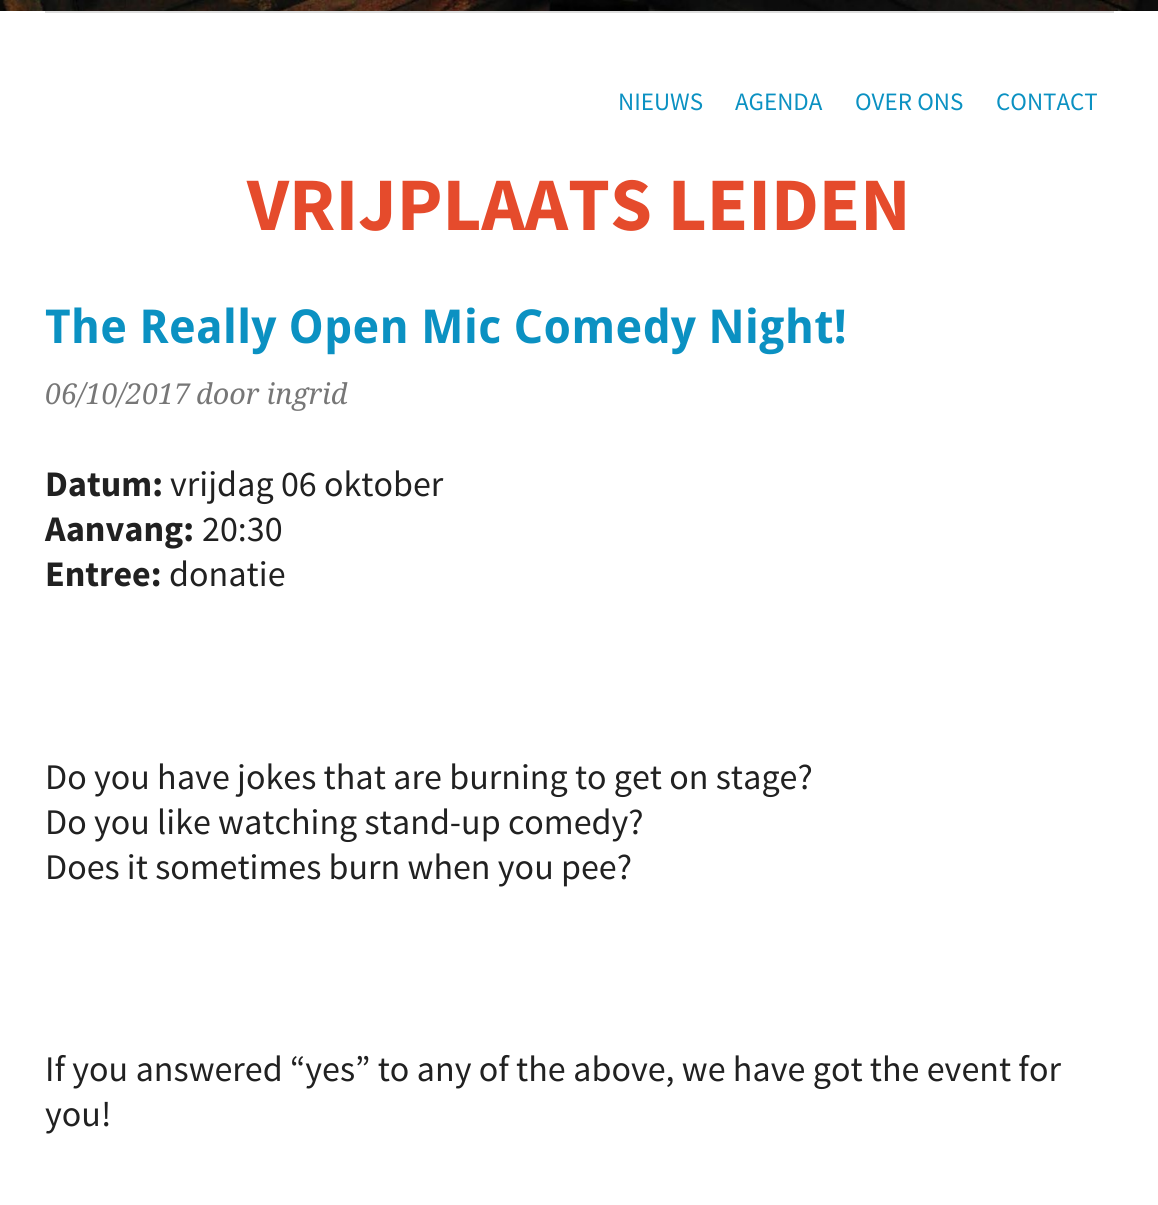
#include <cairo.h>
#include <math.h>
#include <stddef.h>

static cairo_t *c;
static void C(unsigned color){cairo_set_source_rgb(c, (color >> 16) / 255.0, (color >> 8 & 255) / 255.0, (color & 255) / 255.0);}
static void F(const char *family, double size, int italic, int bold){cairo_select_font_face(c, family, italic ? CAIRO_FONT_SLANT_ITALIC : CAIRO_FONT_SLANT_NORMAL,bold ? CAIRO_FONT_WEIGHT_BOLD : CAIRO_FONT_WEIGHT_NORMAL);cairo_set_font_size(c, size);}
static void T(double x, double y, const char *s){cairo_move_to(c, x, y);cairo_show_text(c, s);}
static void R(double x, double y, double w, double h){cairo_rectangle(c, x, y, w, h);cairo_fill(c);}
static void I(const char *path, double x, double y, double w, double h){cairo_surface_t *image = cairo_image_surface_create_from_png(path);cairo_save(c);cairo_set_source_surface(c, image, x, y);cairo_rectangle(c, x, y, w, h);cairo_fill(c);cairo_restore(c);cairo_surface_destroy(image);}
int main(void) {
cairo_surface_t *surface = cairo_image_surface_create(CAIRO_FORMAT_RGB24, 1158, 1205);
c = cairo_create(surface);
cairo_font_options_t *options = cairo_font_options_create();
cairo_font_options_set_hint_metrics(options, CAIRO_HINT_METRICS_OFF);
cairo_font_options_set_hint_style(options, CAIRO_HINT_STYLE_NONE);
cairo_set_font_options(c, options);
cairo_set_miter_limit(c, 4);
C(0xffffff);
cairo_paint(c);
I("1.png",0,0,1158,11);
F("Source Sans Pro",25,0,0);
C(0x0b91c2);
T(618,110,"NIEUWS");
T(735,110,"AGENDA");
T(855,110,"OVER ONS");
T(996,110,"CONTACT");
F("Source Sans Pro",75.5,0,1);
C(0xe54b2c);
T(247,230,"VRIJPLAATS LEIDEN");
C(0xdddddd);
R(45,11,1069,2);
F("Droid Sans",46.75,0,1);
C(0x0b91c2);
T(45,343,"The Really Open Mic Comedy Night!");
F("Droid Serif",28.75,1,0);
C(0x777777);
T(45,404,"06/10/2017");
T(196,404,"door ingrid");
F("Source Sans Pro",36,0,1);
C(0x212121);
T(45,496,"Datum:");
F("Source Sans Pro",36,0,0);
T(170,496,"vrijdag 06 oktober");
F("Source Sans Pro",36,0,1);
T(45,541,"Aanvang:");
F("Source Sans Pro",36,0,0);
T(202,541,"20:30");
F("Source Sans Pro",36,0,1);
T(45,586,"Entree:");
F("Source Sans Pro",36,0,0);
T(169,586,"donatie");
T(45,789,"Do you have jokes that are burning to get on stage?");
T(45,834,"Do you like watching stand-up comedy?");
T(45,879,"Does it sometimes burn when you pee?");
T(45,1081,"If you answered “yes” to any of the above, we have got the event for");
T(45,1126,"you!");
cairo_surface_write_to_png(surface, "o.png");
cairo_font_options_destroy(options);
cairo_destroy(c);
cairo_surface_destroy(surface);
return 0;
}
